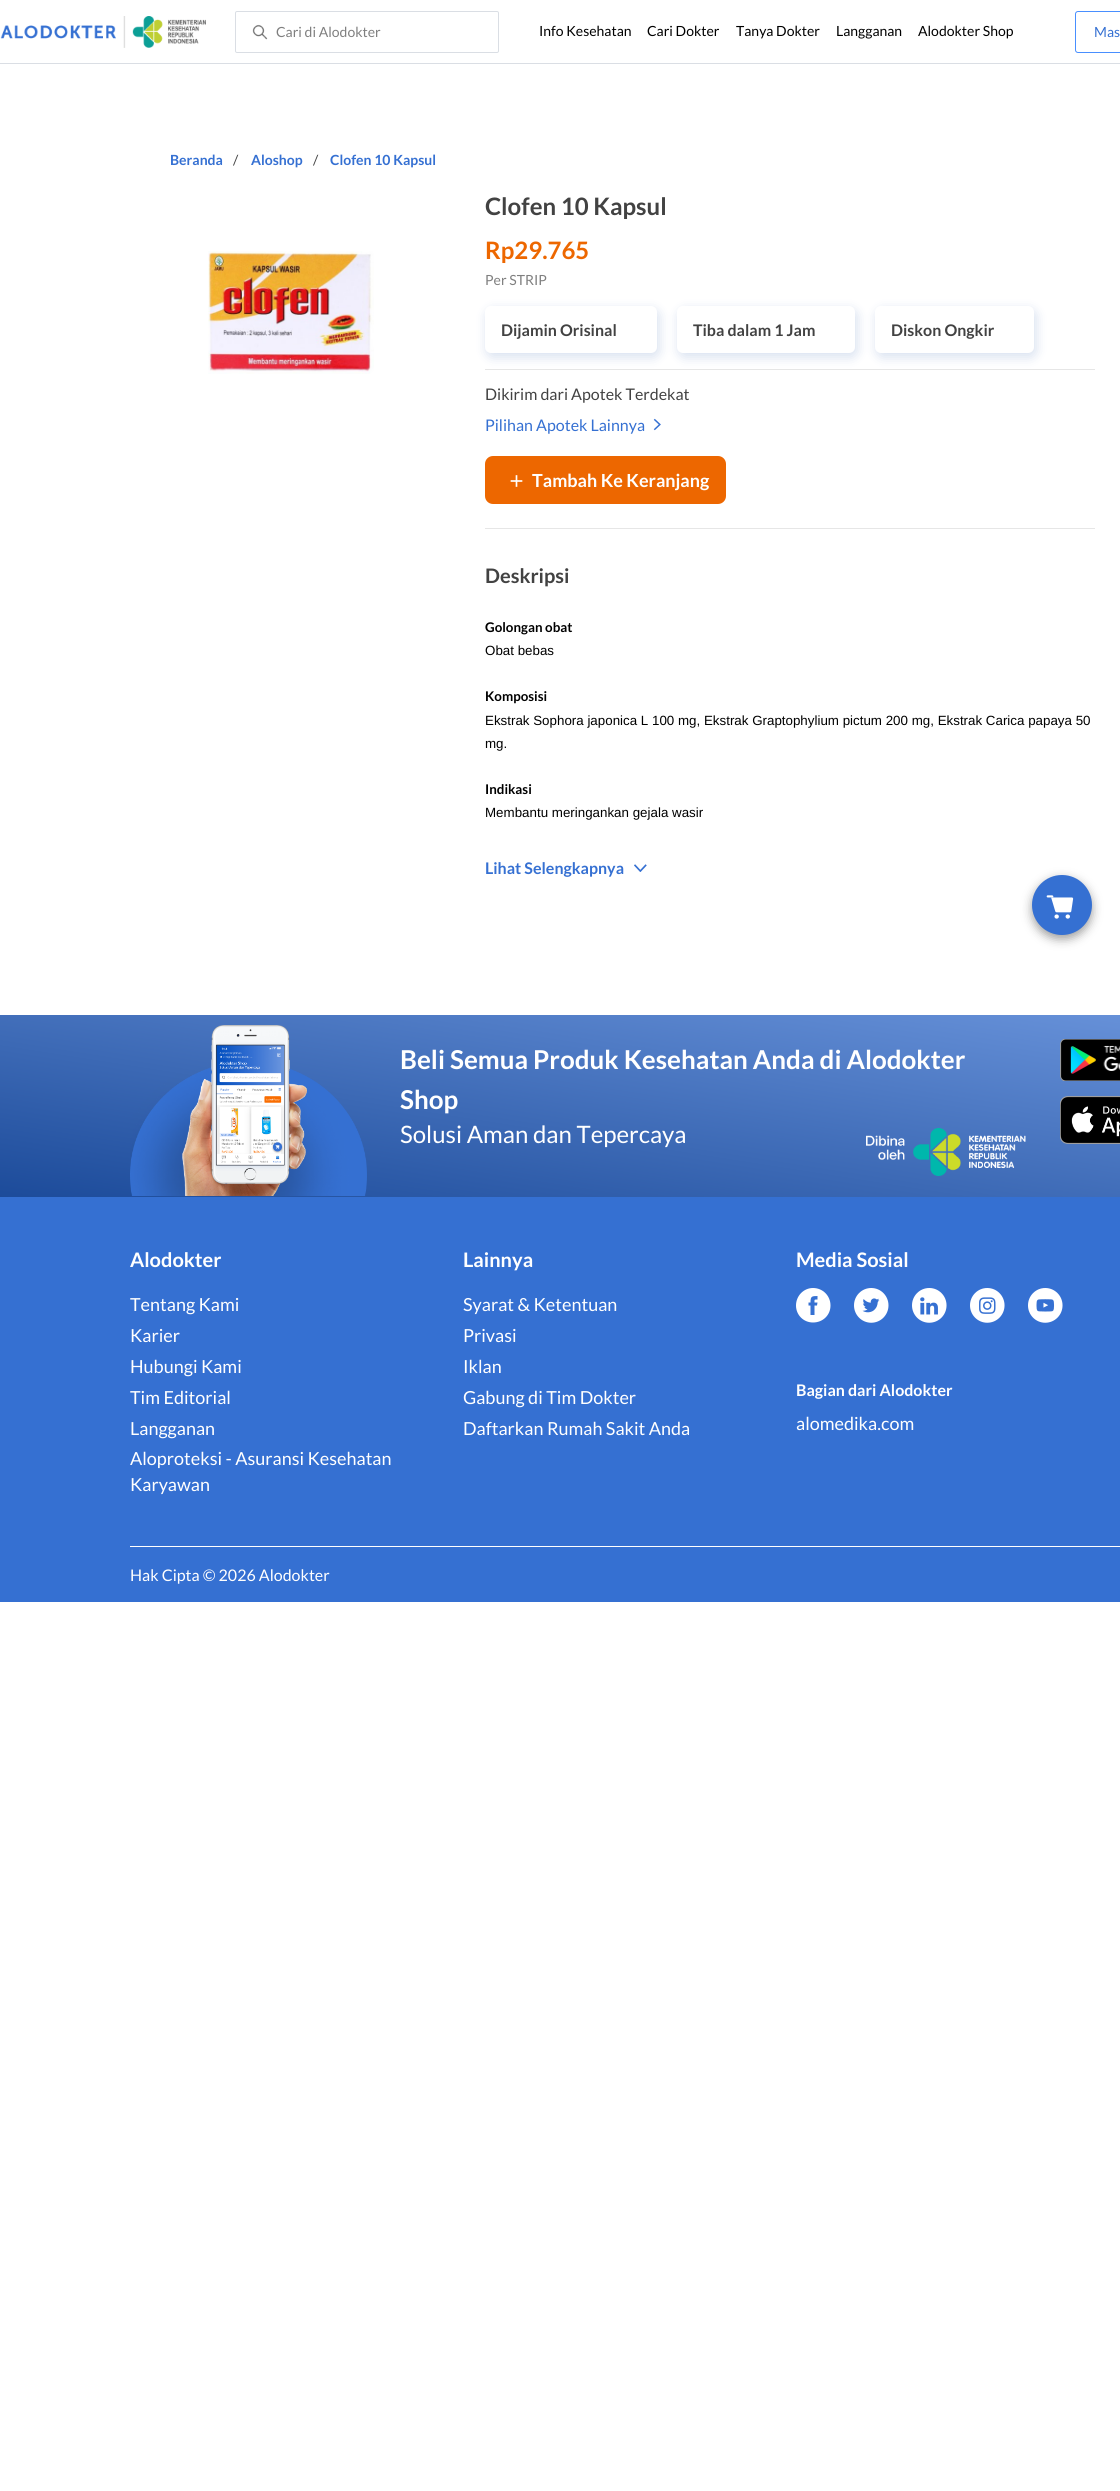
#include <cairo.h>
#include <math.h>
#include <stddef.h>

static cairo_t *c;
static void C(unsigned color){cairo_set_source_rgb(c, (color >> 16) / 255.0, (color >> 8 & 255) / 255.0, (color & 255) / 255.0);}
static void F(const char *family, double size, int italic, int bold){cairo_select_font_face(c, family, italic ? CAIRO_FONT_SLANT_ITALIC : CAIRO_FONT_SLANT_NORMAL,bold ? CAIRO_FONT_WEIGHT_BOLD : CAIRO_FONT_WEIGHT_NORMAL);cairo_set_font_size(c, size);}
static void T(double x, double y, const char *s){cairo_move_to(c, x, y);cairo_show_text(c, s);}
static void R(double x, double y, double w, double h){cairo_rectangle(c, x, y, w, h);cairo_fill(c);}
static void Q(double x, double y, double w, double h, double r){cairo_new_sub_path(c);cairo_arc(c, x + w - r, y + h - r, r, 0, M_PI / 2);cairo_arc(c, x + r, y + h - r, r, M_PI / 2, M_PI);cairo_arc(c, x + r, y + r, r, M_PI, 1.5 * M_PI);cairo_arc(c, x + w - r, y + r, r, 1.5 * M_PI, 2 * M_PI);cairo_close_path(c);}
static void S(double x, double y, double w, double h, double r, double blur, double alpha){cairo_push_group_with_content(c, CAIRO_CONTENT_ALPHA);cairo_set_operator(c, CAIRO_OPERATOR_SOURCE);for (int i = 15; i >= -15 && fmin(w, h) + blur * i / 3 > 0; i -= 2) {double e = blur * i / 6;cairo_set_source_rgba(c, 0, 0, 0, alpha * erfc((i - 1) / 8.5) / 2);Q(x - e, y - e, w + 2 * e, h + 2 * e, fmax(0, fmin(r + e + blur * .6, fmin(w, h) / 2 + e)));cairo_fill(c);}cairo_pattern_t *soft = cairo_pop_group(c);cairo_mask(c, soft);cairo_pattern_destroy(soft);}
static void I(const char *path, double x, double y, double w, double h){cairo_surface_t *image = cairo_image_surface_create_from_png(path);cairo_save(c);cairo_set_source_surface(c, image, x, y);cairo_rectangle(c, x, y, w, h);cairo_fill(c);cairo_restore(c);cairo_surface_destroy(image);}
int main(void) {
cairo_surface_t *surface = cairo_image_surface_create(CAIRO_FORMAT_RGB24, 1120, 2491);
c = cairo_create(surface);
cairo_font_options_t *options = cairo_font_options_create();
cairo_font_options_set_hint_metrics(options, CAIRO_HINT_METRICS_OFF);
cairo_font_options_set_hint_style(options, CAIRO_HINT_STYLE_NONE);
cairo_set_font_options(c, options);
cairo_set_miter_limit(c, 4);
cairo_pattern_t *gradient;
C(0xffffff);
cairo_paint(c);
C(0xdadee4);
R(0,63,1120,1);
I("1.png",0,16,206,32);
I("2.png",252,24,16,16);
Q(235.5,11.5,263,41,1.5);
cairo_set_line_width(c,1);
cairo_stroke(c);
F("Lato",14,0,0);
C(0x7f7f7f);
T(276,37,"Cari di Alodokter");
C(0x000000);
T(539,36,"Info Kesehatan");
T(647,36,"Cari Dokter");
T(736,36,"Tanya Dokter");
T(836,36,"Langganan");
T(918,36,"Alodokter Shop");
Q(1075.5,11.5,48,41,2.5);
C(0x498fff);
cairo_stroke(c);
C(0x3570d2);
T(1094,37,"Mas");
F("Lato",14,0,1);
T(170,165,"Beranda");
F("Lato",14,0,0);
C(0x424242);
T(233,165,"/");
F("Lato",14,0,1);
C(0x3570d2);
T(251,165,"Aloshop");
F("Lato",14,0,0);
C(0x424242);
T(313,165,"/");
F("Lato",14,0,1);
C(0x3570d2);
T(330,165,"Clofen 10 Kapsul");
I("3.png",208,251,166,123);
F("Lato",24,0,1);
C(0x424242);
T(485,215,"Clofen 10 Kapsul");
C(0xed6700);
T(485,259,"Rp29.765");
F("Lato",14,0,0);
C(0x7f7f7f);
T(485,285,"Per STRIP");
C(0xe6e6e6);
R(485,369,610,1);
C(0x003a9e);
S(487,310,172,47,6,6,.16);
C(0xffffff);
Q(485,306,172,47,6);
cairo_fill(c);
F("Lato",16,0,1);
C(0x424242);
T(501,336,"Dijamin Orisinal");
C(0x003a9e);
S(679,310,178,47,6,6,.16);
C(0xffffff);
Q(677,306,178,47,6);
cairo_fill(c);
C(0x424242);
T(693,336,"Tiba dalam 1 Jam");
C(0x003a9e);
S(877,310,159,47,6,6,.16);
C(0xffffff);
Q(875,306,159,47,6);
cairo_fill(c);
C(0x424242);
T(891,336,"Diskon Ongkir");
F("Lato",16,0,0);
T(485,400,"Dikirim dari Apotek Terdekat");
C(0x3570d2);
T(485,431,"Pilihan Apotek Lainnya");
I("4.png",653,418,8,13);
C(0xed6700);
Q(485,456,241,48,8);
cairo_fill(c);
I("5.png",510,475,13,12);
F("Lato",18,0,1);
C(0xffffff);
T(532,487,"Tambah Ke Keranjang");
C(0xe6e6e6);
R(485,528,610,1);
F("Lato",20,0,1);
C(0x424242);
T(485,583,"Deskripsi");
F("Lato",13.35,0,1);
C(0x000000);
T(485,632,"Golongan obat");
F("Liberation Sans",13.35,0,0);
T(485,655,"Obat bebas");
F("Lato",13.35,0,1);
T(485,701,"Komposisi");
F("Liberation Sans",13.35,0,0);
T(485,725,"Ekstrak Sophora japonica L 100 mg, Ekstrak Graptophylium pictum 200 mg, Ekstrak Carica papaya 50");
T(485,748,"mg.");
F("Lato",13.35,0,1);
T(485,794,"Indikasi");
F("Liberation Sans",13.35,0,0);
T(485,817,"Membantu meringankan gejala wasir");
F("Lato",16,0,1);
C(0x3570d2);
T(485,874,"Lihat Selengkapnya");
I("6.png",634,864,13,8);
C(0x575757);
S(1032,879,60,60,30,5,.58);
C(0x3570d2);
cairo_arc(c,1062,905,30,0,2 * M_PI);
cairo_fill(c);
I("7.png",1046,895,28,24);
R(0,1197,1120,405);
gradient = cairo_pattern_create_linear(700,914,640,1298);
cairo_pattern_add_color_stop_rgba(gradient,0,0.427,0.592,0.871,1);
cairo_pattern_add_color_stop_rgba(gradient,1,0.11,0.294,0.604,1);
cairo_set_source(c,gradient);
cairo_pattern_destroy(gradient);
R(0,1015,1120,182);
I("8.png",130,1025,237,171);
F("Lato",26,0,1);
C(0xffffff);
T(400,1069,"Beli Semua Produk Kesehatan Anda di Alodokter");
T(400,1109,"Shop");
F("Lato",24,0,0);
T(400,1143,"Solusi Aman dan Tepercaya");
I("9.png",866,1128,160,48);
I("10.png",1060,1039,60,42);
I("11.png",1060,1096,60,48);
F("Lato",20,0,1);
T(130,1267,"Alodokter");
F("Lato",18,0,0);
T(130,1311,"Tentang Kami");
T(130,1342,"Karier");
T(130,1373,"Hubungi Kami");
T(130,1404,"Tim Editorial");
T(130,1435,"Langganan");
T(130,1465,"Aloproteksi - Asuransi Kesehatan");
T(130,1491,"Karyawan");
F("Lato",20,0,1);
T(463,1267,"Lainnya");
F("Lato",18,0,0);
T(463,1311,"Syarat & Ketentuan");
T(463,1342,"Privasi");
T(463,1373,"Iklan");
T(463,1404,"Gabung di Tim Dokter");
T(463,1435,"Daftarkan Rumah Sakit Anda");
F("Lato",20,0,1);
T(796,1267,"Media Sosial");
cairo_set_fill_rule(c,CAIRO_FILL_RULE_EVEN_ODD);
cairo_new_path(c);
cairo_move_to(c,796,1305.5);
cairo_curve_to(c,796,1296,803.5,1288,813,1288);
cairo_curve_to(c,823,1288,830.5,1296,830.5,1305.5);
cairo_curve_to(c,830.5,1315,823,1322.5,813,1322.5);
cairo_curve_to(c,803.5,1322.5,796,1315,796,1305.5);
cairo_close_path(c);
cairo_fill(c);
C(0x3570d2);
cairo_new_path(c);
cairo_move_to(c,814.5,1315);
cairo_line_to(c,814.5,1305.5);
cairo_line_to(c,817,1305.5);
cairo_line_to(c,817.5,1302.5);
cairo_line_to(c,814.5,1302.5);
cairo_curve_to(c,814.5,1299.5,814,1299.5,817.5,1299.5);
cairo_line_to(c,817.5,1296);
cairo_curve_to(c,811.5,1296,810.5,1296.5,810.5,1302.5);
cairo_line_to(c,808.5,1302.5);
cairo_line_to(c,808.5,1305.5);
cairo_line_to(c,810.5,1305.5);
cairo_line_to(c,810.5,1315);
cairo_close_path(c);
cairo_fill(c);
I("12.png",854,1288,35,35);
I("13.png",912,1288,35,35);
I("14.png",970,1288,35,35);
I("15.png",1028,1288,35,35);
F("Lato",16,0,1);
C(0xffffff);
T(796,1396,"Bagian dari Alodokter");
F("Lato",18,0,0);
T(796,1430,"alomedika.com");
R(130,1546,990,1);
F("Lato",16,0,0);
T(130,1581,"Hak Cipta © 2026 Alodokter");
cairo_surface_write_to_png(surface, "o.png");
cairo_font_options_destroy(options);
cairo_destroy(c);
cairo_surface_destroy(surface);
return 0;
}
